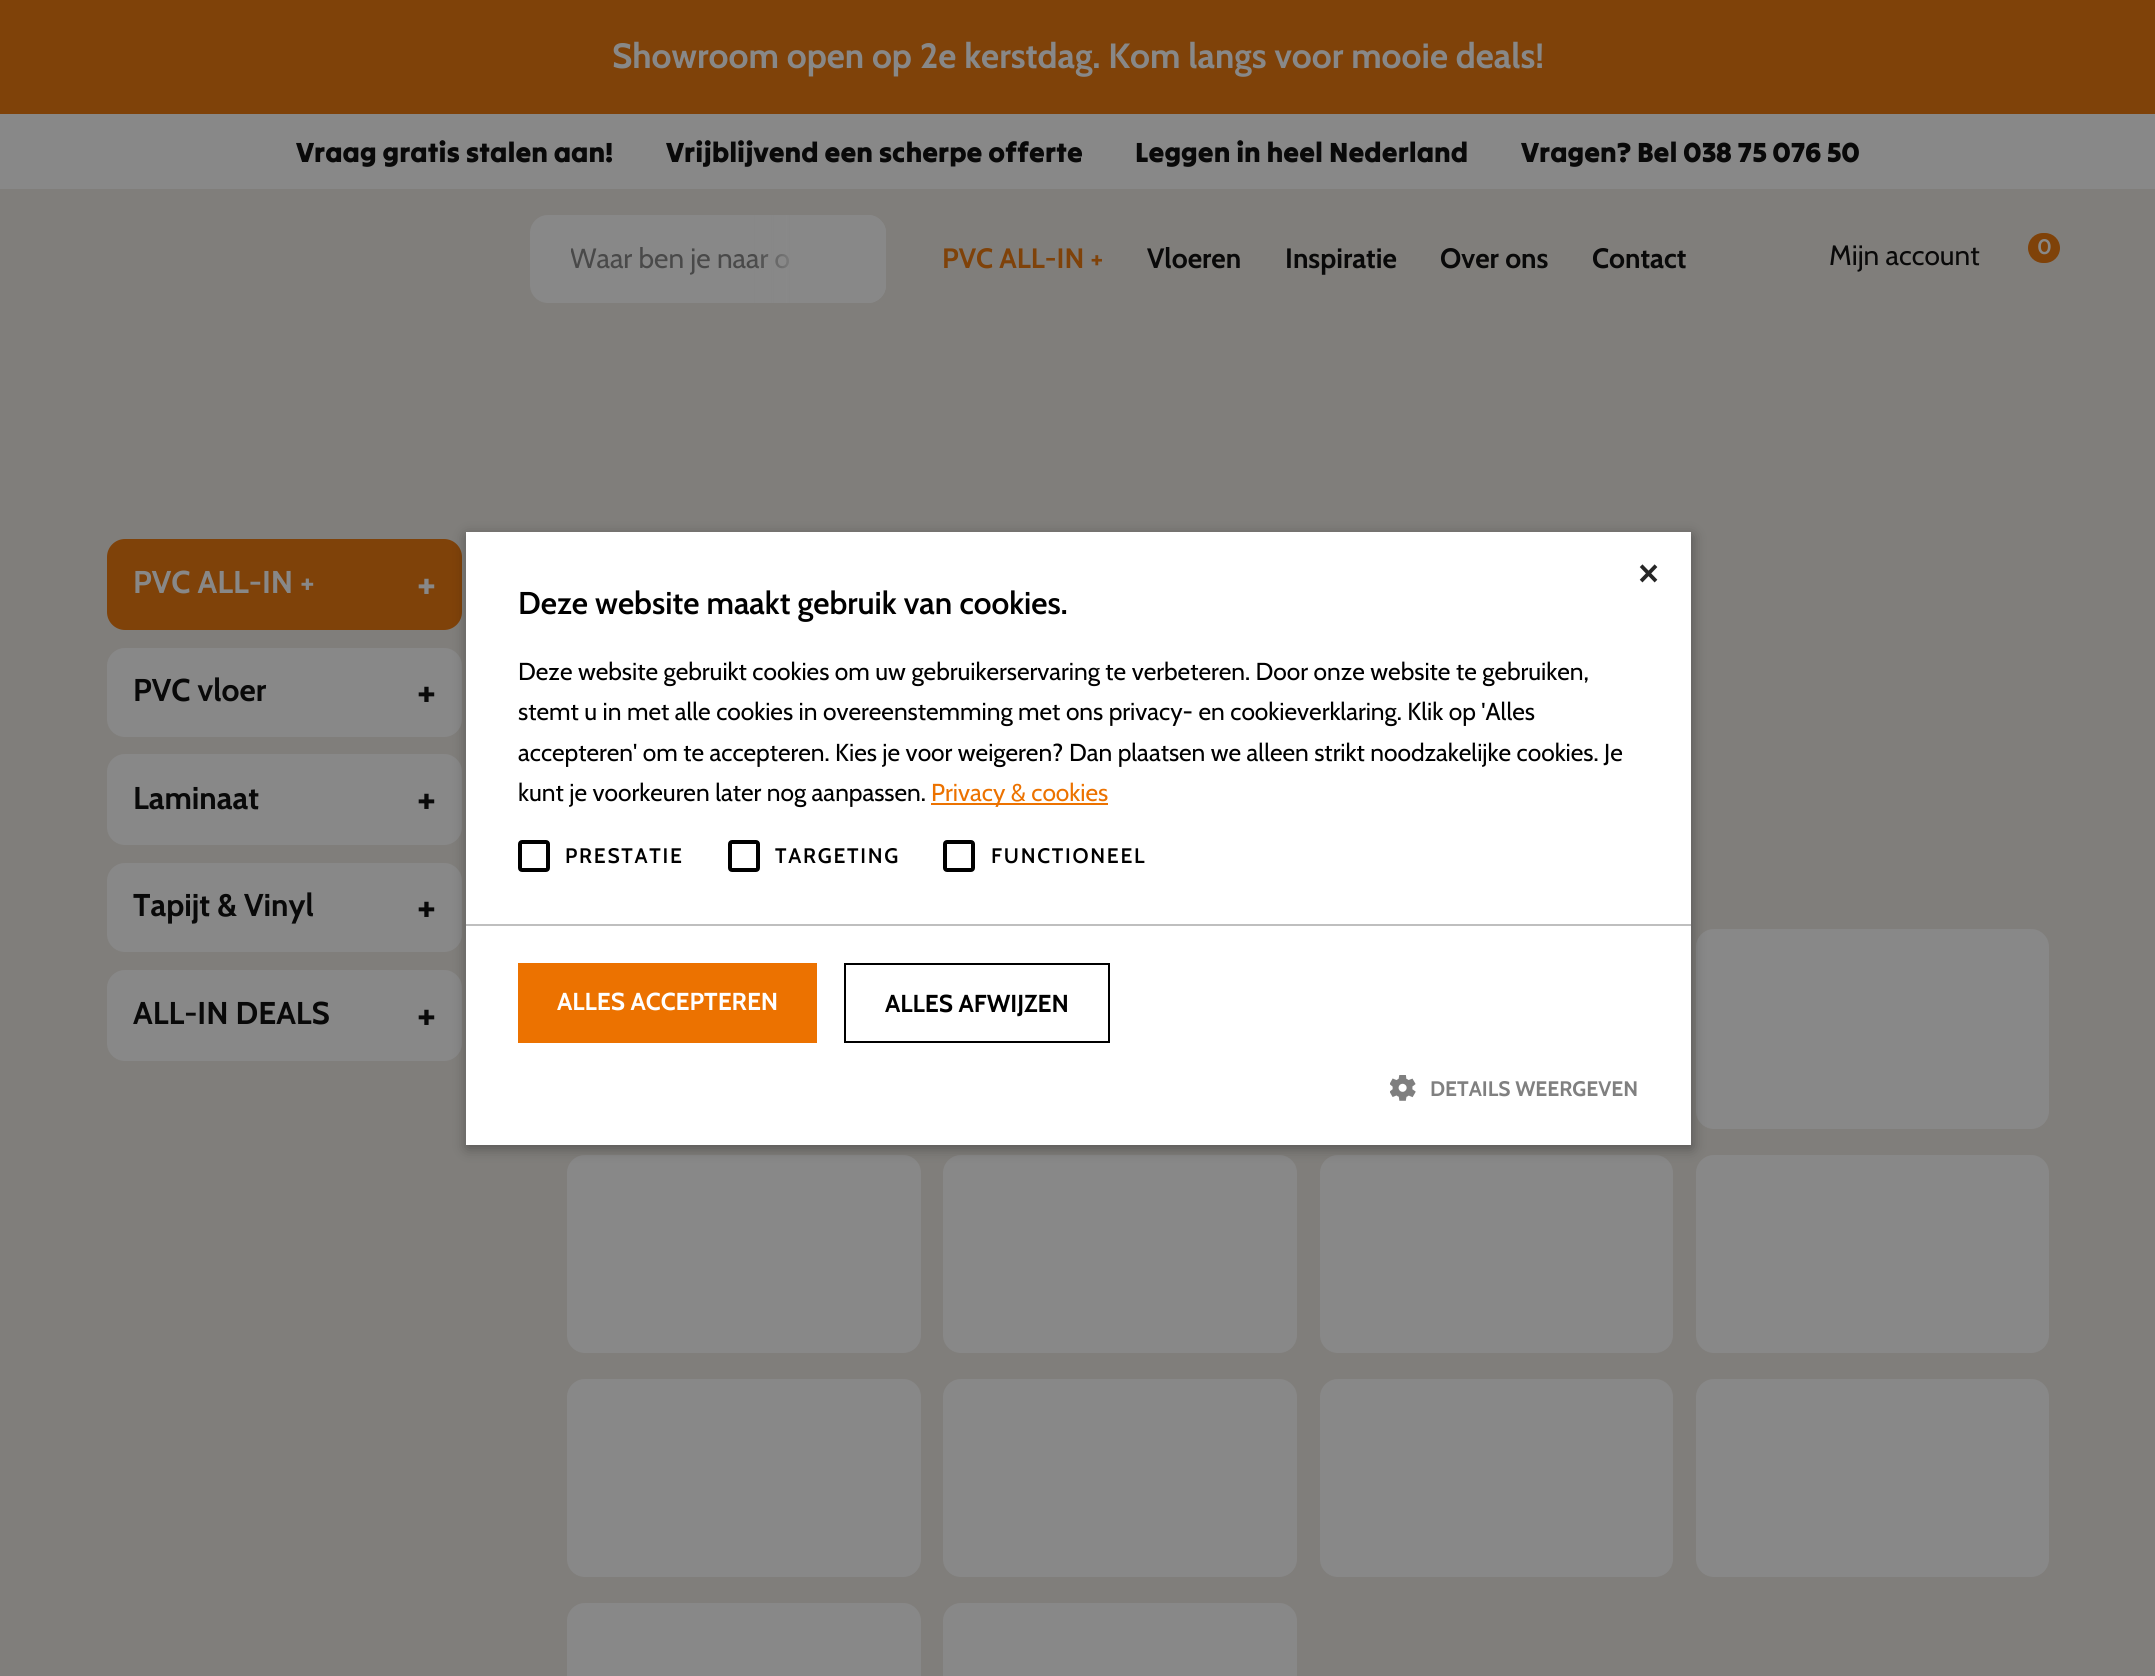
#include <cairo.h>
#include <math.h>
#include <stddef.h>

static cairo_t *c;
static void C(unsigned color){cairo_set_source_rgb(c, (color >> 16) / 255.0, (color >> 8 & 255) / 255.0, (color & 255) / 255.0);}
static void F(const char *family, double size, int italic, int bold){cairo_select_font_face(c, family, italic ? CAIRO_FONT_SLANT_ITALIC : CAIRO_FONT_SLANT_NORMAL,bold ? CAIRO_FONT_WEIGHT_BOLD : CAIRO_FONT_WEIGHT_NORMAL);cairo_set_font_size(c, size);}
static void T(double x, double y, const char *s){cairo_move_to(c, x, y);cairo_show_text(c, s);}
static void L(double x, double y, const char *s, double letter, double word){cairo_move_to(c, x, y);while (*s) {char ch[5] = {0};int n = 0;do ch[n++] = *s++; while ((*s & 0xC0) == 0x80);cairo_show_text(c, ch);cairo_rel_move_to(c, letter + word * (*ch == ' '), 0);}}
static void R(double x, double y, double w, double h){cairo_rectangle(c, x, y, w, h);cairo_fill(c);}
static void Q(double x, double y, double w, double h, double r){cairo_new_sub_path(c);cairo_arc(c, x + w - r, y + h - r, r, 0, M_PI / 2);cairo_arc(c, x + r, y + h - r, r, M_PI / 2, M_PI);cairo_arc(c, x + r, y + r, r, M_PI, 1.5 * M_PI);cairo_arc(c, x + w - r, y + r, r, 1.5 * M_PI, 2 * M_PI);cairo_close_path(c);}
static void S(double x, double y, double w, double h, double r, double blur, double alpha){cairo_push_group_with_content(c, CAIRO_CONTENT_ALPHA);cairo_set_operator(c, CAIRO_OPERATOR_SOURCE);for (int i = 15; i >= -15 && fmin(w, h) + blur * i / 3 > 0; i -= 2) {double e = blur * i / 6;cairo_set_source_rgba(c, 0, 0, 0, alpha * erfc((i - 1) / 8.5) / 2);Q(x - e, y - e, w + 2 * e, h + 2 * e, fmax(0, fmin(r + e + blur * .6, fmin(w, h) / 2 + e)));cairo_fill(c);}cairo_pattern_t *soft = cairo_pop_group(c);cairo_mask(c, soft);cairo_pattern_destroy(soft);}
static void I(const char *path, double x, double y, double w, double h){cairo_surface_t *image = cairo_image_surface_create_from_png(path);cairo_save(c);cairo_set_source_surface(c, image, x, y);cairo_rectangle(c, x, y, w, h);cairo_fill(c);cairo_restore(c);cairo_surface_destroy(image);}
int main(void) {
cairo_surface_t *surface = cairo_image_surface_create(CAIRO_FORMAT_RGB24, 2155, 1676);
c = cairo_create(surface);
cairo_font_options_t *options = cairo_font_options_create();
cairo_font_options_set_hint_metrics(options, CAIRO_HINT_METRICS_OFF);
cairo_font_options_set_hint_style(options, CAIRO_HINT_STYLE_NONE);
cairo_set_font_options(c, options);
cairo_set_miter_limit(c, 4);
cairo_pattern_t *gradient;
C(0x807e7b);
cairo_paint(c);
C(0x7f4209);
R(0,0,2155,114);
F("Cabin",35,0,1);
C(0x888888);
T(612,68,"Showroom open op 2e kerstdag. Kom langs voor mooie deals!");
R(0,114,2155,75);
F("Tilt Warp",28,0,0);
C(0x090909);
T(296,162,"Vraag gratis stalen aan!");
T(666,162,"Vrijblijvend een scherpe offerte");
T(1135,162,"Leggen in heel Nederland");
T(1521,162,"Vragen? Bel 038 75 076 50");
C(0x888888);
Q(530,215,356,88,18);
cairo_fill(c);
cairo_save(c);
cairo_rectangle(c,571,242,274,33);
cairo_clip(c);
F("Cabin",28,0,0);
C(0x494949);
T(570,268,"Waar ben je naar o");
cairo_restore(c);
gradient = cairo_pattern_create_linear(754,259,886,259);
cairo_pattern_add_color_stop_rgba(gradient,0,0.533,0.533,0.533,0);
cairo_pattern_add_color_stop_rgba(gradient,.35,0.533,0.533,0.533,1);
cairo_set_source(c,gradient);
cairo_pattern_destroy(gradient);
cairo_new_path(c);
cairo_move_to(c,754,215);
cairo_line_to(c,868,215);
cairo_curve_to(c,878,215,886,223,886,233);
cairo_line_to(c,886,285);
cairo_curve_to(c,886,295,878,303,868,303);
cairo_line_to(c,754,303);
cairo_close_path(c);
cairo_fill(c);
F("Cabin",28,0,1);
C(0x7f4209);
T(942,268,"PVC ALL-IN +");
C(0x090909);
T(1147,268,"Vloeren");
T(1285,268,"Inspiratie");
T(1440,268,"Over ons");
T(1592,268,"Contact");
F("Cabin",28,0,0);
T(1829,265,"Mijn account");
C(0x7f4209);
Q(2028,233,32,30,15);
cairo_fill(c);
F("Cabin",21,0,1);
C(0x888888);
T(2037,254,"0");
C(0x7f4209);
Q(107,539,355,91,18);
cairo_fill(c);
F("Cabin",31.5,0,1);
C(0x888888);
T(133,593,"PVC ALL-IN +");
F("Cabin",42,0,1);
T(417,598,"+");
Q(107,648,355,89,18);
cairo_fill(c);
F("Cabin",31.5,0,1);
C(0x090909);
T(133,701,"PVC vloer");
F("Cabin",42,0,1);
T(417,706,"+");
C(0x888888);
Q(107,754,355,91,18);
cairo_fill(c);
F("Cabin",31.5,0,1);
C(0x090909);
T(133,809,"Laminaat");
F("Cabin",42,0,1);
T(417,813,"+");
C(0x888888);
Q(107,863,355,89,18);
cairo_fill(c);
F("Cabin",31.5,0,1);
C(0x090909);
T(133,916,"Tapijt & Vinyl");
F("Cabin",42,0,1);
T(417,921,"+");
C(0x888888);
Q(107,970,355,91,18);
cairo_fill(c);
F("Cabin",31.5,0,1);
C(0x090909);
T(133,1024,"ALL-IN DEALS");
F("Cabin",42,0,1);
T(417,1029,"+");
C(0x888888);
Q(1696,929,353,200,18);
cairo_fill(c);
Q(567,1155,354,198,18);
cairo_fill(c);
Q(943,1155,354,198,18);
cairo_fill(c);
Q(1320,1155,353,198,18);
cairo_fill(c);
Q(1696,1155,353,198,18);
cairo_fill(c);
Q(567,1379,354,198,18);
cairo_fill(c);
Q(943,1379,354,198,18);
cairo_fill(c);
Q(1320,1379,353,198,18);
cairo_fill(c);
Q(1696,1379,353,198,18);
cairo_fill(c);
Q(567,1603,354,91,18);
cairo_fill(c);
Q(943,1603,354,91,18);
cairo_fill(c);
C(0x000000);
S(467,536,1225,612,0,7,.35);
C(0xffffff);
R(466,532,1225,613);
F("Cabin",52,0,0);
C(0x262626);
T(1638,588,"×");
F("Cabin SemiBold",31.5,0,0);
C(0x000000);
T(518,614,"Deze website maakt gebruik van cookies.");
F("Cabin",24.5,0,0);
T(518,680,"Deze website gebruikt cookies om uw gebruikerservaring te verbeteren. Door onze website te gebruiken,");
T(518,720,"stemt u in met alle cookies in overeenstemming met ons privacy- en cookieverklaring. Klik op 'Alles");
T(518,761,"accepteren' om te accepteren. Kies je voor weigeren? Dan plaatsen we alleen strikt noodzakelijke cookies. Je");
T(518,801,"kunt je voorkeuren later nog aanpassen.");
C(0xec7200);
R(931,803,177,2);
T(931,801,"Privacy & cookies");
Q(520,842,28,28,2);
C(0x000000);
cairo_set_line_width(c,4);
cairo_stroke(c);
F("Cabin SemiBold",21,0,0);
L(565,863,"PRESTATIE",1.75,0);
Q(730,842,28,28,2);
cairo_stroke(c);
L(775,863,"TARGETING",1.75,0);
Q(945,842,28,28,2);
cairo_stroke(c);
L(991,863,"FUNCTIONEEL",1.75,0);
C(0xbfbfbf);
R(466,924,1225,2);
C(0xec7200);
R(518,963,299,80);
F("Cabin",24.5,0,1);
C(0xffffff);
T(557,1010,"ALLES ACCEPTEREN");
cairo_rectangle(c,845,964,264,78);
C(0x000000);
cairo_set_line_width(c,2);
cairo_stroke(c);
T(885,1012,"ALLES AFWIJZEN");
I("1.png",1390,1075,26,26);
F("Cabin",21,0,1);
C(0x808080);
T(1430,1096,"DETAILS WEERGEVEN");
cairo_surface_write_to_png(surface, "o.png");
cairo_font_options_destroy(options);
cairo_destroy(c);
cairo_surface_destroy(surface);
return 0;
}
